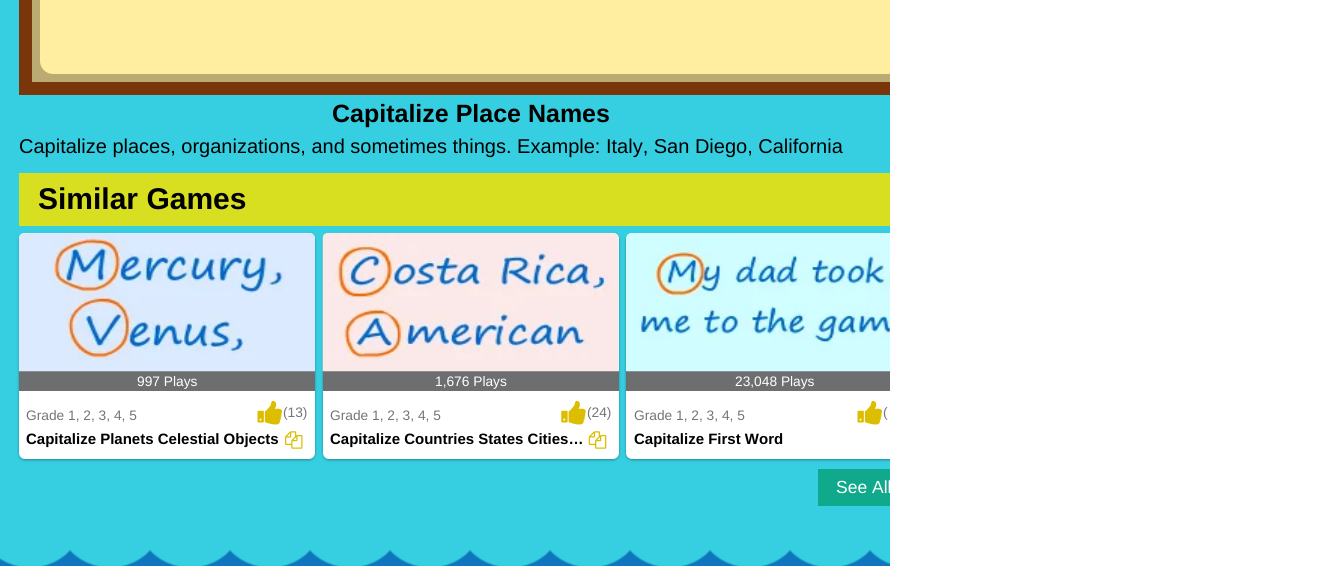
#include <cairo.h>
#include <math.h>
#include <stddef.h>

static cairo_t *c;
static void C(unsigned color){cairo_set_source_rgb(c, (color >> 16) / 255.0, (color >> 8 & 255) / 255.0, (color & 255) / 255.0);}
static void F(const char *family, double size, int italic, int bold){cairo_select_font_face(c, family, italic ? CAIRO_FONT_SLANT_ITALIC : CAIRO_FONT_SLANT_NORMAL,bold ? CAIRO_FONT_WEIGHT_BOLD : CAIRO_FONT_WEIGHT_NORMAL);cairo_set_font_size(c, size);}
static void T(double x, double y, const char *s){cairo_move_to(c, x, y);cairo_show_text(c, s);}
static void R(double x, double y, double w, double h){cairo_rectangle(c, x, y, w, h);cairo_fill(c);}
static void Q(double x, double y, double w, double h, double r){cairo_new_sub_path(c);cairo_arc(c, x + w - r, y + h - r, r, 0, M_PI / 2);cairo_arc(c, x + r, y + h - r, r, M_PI / 2, M_PI);cairo_arc(c, x + r, y + r, r, M_PI, 1.5 * M_PI);cairo_arc(c, x + w - r, y + r, r, 1.5 * M_PI, 2 * M_PI);cairo_close_path(c);}
static void S(double x, double y, double w, double h, double r, double blur, double alpha){cairo_push_group_with_content(c, CAIRO_CONTENT_ALPHA);cairo_set_operator(c, CAIRO_OPERATOR_SOURCE);for (int i = 15; i >= -15 && fmin(w, h) + blur * i / 3 > 0; i -= 2) {double e = blur * i / 6;cairo_set_source_rgba(c, 0, 0, 0, alpha * erfc((i - 1) / 8.5) / 2);Q(x - e, y - e, w + 2 * e, h + 2 * e, fmax(0, fmin(r + e + blur * .6, fmin(w, h) / 2 + e)));cairo_fill(c);}cairo_pattern_t *soft = cairo_pop_group(c);cairo_mask(c, soft);cairo_pattern_destroy(soft);}
static void I(const char *path, double x, double y, double w, double h){cairo_surface_t *image = cairo_image_surface_create_from_png(path);cairo_save(c);cairo_set_source_surface(c, image, x, y);cairo_rectangle(c, x, y, w, h);cairo_fill(c);cairo_restore(c);cairo_surface_destroy(image);}
int main(void) {
cairo_surface_t *surface = cairo_image_surface_create(CAIRO_FORMAT_RGB24, 1340, 566);
c = cairo_create(surface);
cairo_font_options_t *options = cairo_font_options_create();
cairo_font_options_set_hint_metrics(options, CAIRO_HINT_METRICS_OFF);
cairo_font_options_set_hint_style(options, CAIRO_HINT_STYLE_NONE);
cairo_set_font_options(c, options);
cairo_set_miter_limit(c, 4);
C(0x35cfe1);
cairo_paint(c);
C(0xb9ab72);
R(32,0,858,82);
cairo_rectangle(c,25.5,-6.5,891,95);
C(0x79360b);
cairo_set_line_width(c,13);
cairo_stroke(c);
C(0xffee9f);
Q(40,-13,861,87,13);
cairo_fill(c);
F("Liberation Sans",25,0,1);
C(0x000000);
T(332,122,"Capitalize Place Names");
F("Liberation Sans",20,0,0);
T(19,153,"Capitalize places, organizations, and sometimes things. Example: Italy, San Diego, California");
C(0xd8df20);
R(19,173,871,53);
F("Liberation Sans",30,0,1);
C(0x000000);
T(38,209,"Similar Games");
C(0x000000);
S(19,234,296,226,6,1,.24);
S(19,234,296,226,6,2,.12);
C(0xffffff);
Q(19,233,296,226,6);
cairo_fill(c);
I("1.png",19,233,296,6);
C(0x6d6e70);
R(19,371,296,20);
I("2.png",18,232,297,140);
F("Liberation Sans",13.75,0,0);
C(0xffffff);
T(137,386,"997 Plays");
C(0x757577);
T(26,420,"Grade 1, 2, 3, 4, 5");
I("3.png",257,400,25,25);
T(283,417,"(13)");
F("Liberation Sans",15,0,1);
C(0x000000);
T(26,444,"Capitalize Planets Celestial Objects");
I("4.png",285,431,18,18);
C(0x000000);
S(323,234,296,226,6,1,.24);
S(323,234,296,226,6,2,.12);
C(0xffffff);
Q(323,233,296,226,6);
cairo_fill(c);
I("5.png",322,233,297,139);
C(0x6d6e70);
R(323,371,296,20);
I("6.png",322,232,297,140);
F("Liberation Sans",13.75,0,0);
C(0xffffff);
T(435,386,"1,676 Plays");
C(0x757577);
T(330,420,"Grade 1, 2, 3, 4, 5");
I("7.png",561,400,25,25);
T(587,417,"(24)");
F("Liberation Sans",15,0,1);
C(0x000000);
T(330,444,"Capitalize Countries States Cities…");
I("8.png",588,431,19,18);
C(0x000000);
S(626,234,297,226,6,1,.24);
S(626,234,297,226,6,2,.12);
C(0xffffff);
Q(626,233,297,226,6);
cairo_fill(c);
I("9.png",626,233,5,138);
C(0x6d6e70);
R(626,371,264,20);
I("10.png",626,232,264,140);
F("Liberation Sans",13.75,0,0);
C(0xffffff);
T(735,386,"23,048 Plays");
C(0x757577);
T(634,420,"Grade 1, 2, 3, 4, 5");
I("3.png",857,400,25,25);
T(883,417,"(");
F("Liberation Sans",15,0,1);
C(0x000000);
T(634,444,"Capitalize First Word");
C(0x10a98b);
R(818,469,72,37);
F("Liberation Sans",17.5,0,0);
C(0xffffff);
T(836,493,"See All");
R(890,0,450,566);
I("11.png",0,550,890,16);
cairo_surface_write_to_png(surface, "o.png");
cairo_font_options_destroy(options);
cairo_destroy(c);
cairo_surface_destroy(surface);
return 0;
}
